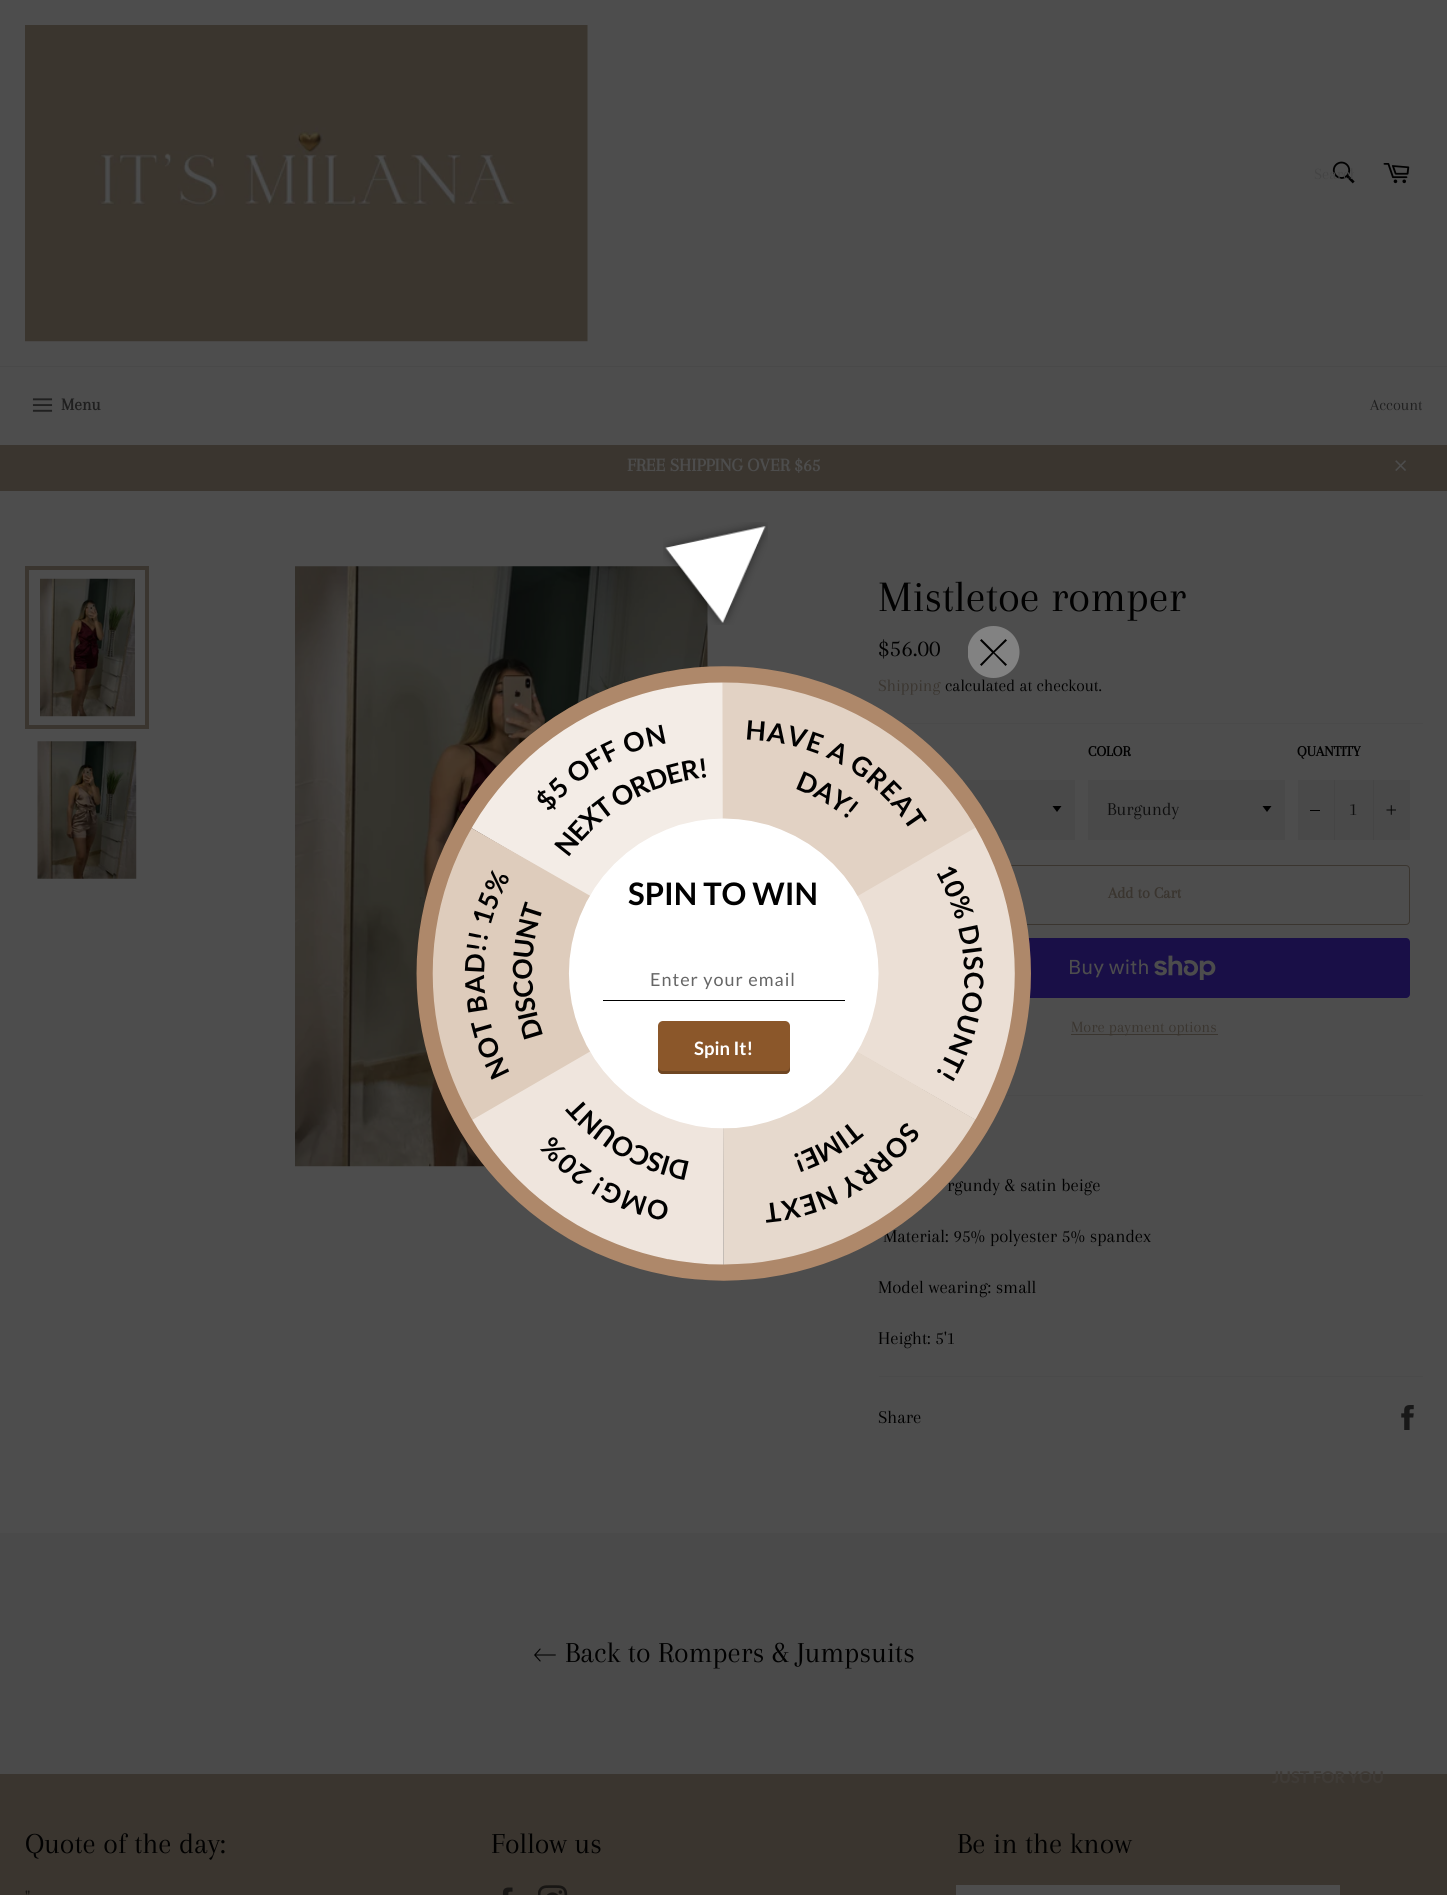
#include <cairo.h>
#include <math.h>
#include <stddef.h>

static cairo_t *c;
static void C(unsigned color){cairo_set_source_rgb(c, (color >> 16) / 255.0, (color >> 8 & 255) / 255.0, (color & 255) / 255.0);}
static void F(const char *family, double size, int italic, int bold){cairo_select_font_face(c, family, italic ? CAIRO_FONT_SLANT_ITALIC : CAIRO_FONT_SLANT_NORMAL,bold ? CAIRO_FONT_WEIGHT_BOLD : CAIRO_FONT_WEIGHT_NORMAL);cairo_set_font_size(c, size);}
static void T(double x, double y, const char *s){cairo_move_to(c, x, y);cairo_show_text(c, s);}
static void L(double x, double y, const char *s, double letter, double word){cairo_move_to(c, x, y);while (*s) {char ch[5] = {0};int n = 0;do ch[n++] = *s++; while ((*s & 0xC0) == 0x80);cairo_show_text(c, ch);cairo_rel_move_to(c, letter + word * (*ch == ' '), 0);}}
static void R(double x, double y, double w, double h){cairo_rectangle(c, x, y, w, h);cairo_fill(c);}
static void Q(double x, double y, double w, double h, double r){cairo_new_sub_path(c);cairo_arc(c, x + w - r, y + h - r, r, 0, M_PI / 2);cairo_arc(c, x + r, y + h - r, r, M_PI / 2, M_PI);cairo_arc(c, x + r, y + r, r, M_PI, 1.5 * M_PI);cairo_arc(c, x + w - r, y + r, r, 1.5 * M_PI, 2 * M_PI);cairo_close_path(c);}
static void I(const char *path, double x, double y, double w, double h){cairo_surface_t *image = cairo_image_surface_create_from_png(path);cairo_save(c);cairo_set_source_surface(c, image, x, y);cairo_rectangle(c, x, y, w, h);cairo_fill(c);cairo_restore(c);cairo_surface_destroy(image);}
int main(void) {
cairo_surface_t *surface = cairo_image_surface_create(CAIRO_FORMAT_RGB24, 1447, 1895);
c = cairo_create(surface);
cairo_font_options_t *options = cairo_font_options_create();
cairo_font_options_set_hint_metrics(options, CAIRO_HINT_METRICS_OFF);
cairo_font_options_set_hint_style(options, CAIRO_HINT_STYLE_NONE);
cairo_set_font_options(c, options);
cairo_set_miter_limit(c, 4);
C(0x4d4d4d);
cairo_paint(c);
I("1.png",25,25,563,317);
I("2.png",1332,161,23,23);
cairo_save(c);
cairo_rectangle(c,1314,165,40,18);
cairo_clip(c);
F("Arapey",16.25,0,0);
C(0x444444);
T(1314,179,"Search");
cairo_restore(c);
I("3.png",1383,163,27,21);
C(0x494949);
R(0,366,1447,1);
I("4.png",32,398,21,14);
F("Arapey",17.5,0,1);
C(0x1f1f1f);
T(61,410,"Menu");
F("Arapey",16.25,0,0);
T(1370,410,"Account");
C(0x3a352f);
R(0,445,1447,46);
F("Arapey",18.75,0,1);
C(0x4d4d4d);
T(627,471,"FREE SHIPPING OVER $65");
I("5.png",1395,460,11,11);
I("6.png",40,578,95,139);
cairo_rectangle(c,27,568,120,159);
C(0x3a352f);
cairo_set_line_width(c,4);
cairo_stroke(c);
I("7.png",37,741,100,138);
I("8.png",295,566,414,602);
F("Arapey",45,0,0);
C(0x010101);
T(878,611,"Mistletoe romper");
F("Arapey",25,0,0);
T(878,656,"$56.00");
F("Arapey",17.5,0,0);
C(0x3a352f);
T(878,691,"Shipping");
C(0x010101);
T(945,691,"calculated at checkout.");
C(0x4a4a4a);
R(902,723,521,1);
C(0x494949);
R(962,780,113,60);
C(0x010101);
cairo_new_path(c);
cairo_move_to(c,1052.5,806);
cairo_line_to(c,1057,812);
cairo_line_to(c,1061.5,806);
cairo_close_path(c);
cairo_fill(c);
F("Arapey",15,0,1);
T(1088,756,"COLOR");
C(0x494949);
R(1088,780,197,60);
C(0x010101);
cairo_new_path(c);
cairo_move_to(c,1262.5,806);
cairo_line_to(c,1267,812);
cairo_line_to(c,1271.5,806);
cairo_close_path(c);
cairo_fill(c);
F("Arapey",18.75,0,0);
C(0x0f0f0f);
T(1107,815,"Burgundy");
F("Arapey",15,0,1);
C(0x010101);
T(1297,756,"QUANTITY");
C(0x494949);
R(1298,780,112,60);
C(0x454545);
R(1334,780,1,60);
C(0x010101);
R(1310,810,10,1);
F("Arapey",18.75,0,0);
C(0x0f0f0f);
T(1349,815,"1");
C(0x454545);
R(1373,780,1,60);
I("9.png",1386,805,10,10);
Q(879.5,865.5,530,59,3.5);
C(0x3a352f);
cairo_set_line_width(c,1);
cairo_stroke(c);
F("Arapey",16.25,0,1);
T(1108,898,"Add to Cart");
C(0x190f47);
Q(879,938,531,60,4);
cairo_fill(c);
F("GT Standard",20,0,0);
C(0x4d4d4d);
T(1068,974,"Buy with");
I("10.png",1154,955,62,25);
C(0x3a352f);
R(1071,1034,147,1);
F("Arapey",16.25,0,0);
T(1071,1032,"More payment options");
C(0x4a4a4a);
R(932,1095,491,1);
F("Arapey",18.75,0,0);
C(0x010101);
T(947,1191,"rgundy & satin beige");
T(883,1242,"Material: 95% polyester 5% spandex");
T(878,1293,"Model wearing: small");
T(878,1344,"Height: 5'1");
C(0x4a4a4a);
R(879,1376,544,1);
C(0x010101);
T(878,1423,"Share");
I("11.png",1401,1405,13,25);
C(0x4a4a4a);
R(0,1533,1447,241);
I("12.png",534,1648,22,14);
F("Arapey",30,0,0);
C(0x010101);
T(565,1662,"Back to Rompers & Jumpsuits");
C(0x3a352f);
R(0,1774,1447,121);
C(0x010101);
T(25,1853,"Quote of the day:");
F("Arapey",18.75,0,0);
C(0x181613);
T(25,1903,"\"");
F("Arapey",30,0,0);
C(0x010101);
T(491,1853,"Follow us");
I("13.png",502,1887,11,8);
I("14.png",538,1885,30,10);
T(957,1853,"Be in the know");
C(0x4d4d4d);
R(956,1885,384,10);
I("15.png",663,522,105,103);
I("16.png",416,666,615,615);
cairo_save(c);
cairo_rectangle(c,968,626,52,52);
cairo_clip(c);
C(0x828282);
cairo_arc(c,993.5,652,26,0,2 * M_PI);
cairo_fill(c);
cairo_restore(c);
C(0x000000);
cairo_set_fill_rule(c,CAIRO_FILL_RULE_EVEN_ODD);
cairo_new_path(c);
cairo_move_to(c,1007,640.5);
cairo_line_to(c,1005.5,639);
cairo_line_to(c,993.5,651);
cairo_line_to(c,981.5,639);
cairo_line_to(c,980,640.5);
cairo_line_to(c,992,652.5);
cairo_line_to(c,980,664.5);
cairo_line_to(c,981.5,666);
cairo_line_to(c,993.5,653.5);
cairo_line_to(c,1005.5,666);
cairo_line_to(c,1007,664.5);
cairo_line_to(c,994.5,652.5);
cairo_close_path(c);
cairo_fill(c);
F("Lato",31,0,1);
C(0x010101);
T(628,905,"SPIN TO WIN");
C(0x000000);
R(603,1000,242,1);
F("Lato",18,0,0);
C(0x666666);
L(650,986,"Enter your email",1,0);
C(0x8b572a);
Q(658,1021,132,53,5);
cairo_fill(c);
C(0x6f4622);
cairo_set_fill_rule(c,CAIRO_FILL_RULE_WINDING);
cairo_new_path(c);
cairo_move_to(c,658,1066);
cairo_line_to(c,658,1069);
cairo_curve_to(c,658,1072,660,1074,663,1074);
cairo_line_to(c,785,1074);
cairo_curve_to(c,788,1074,790,1072,790,1069);
cairo_line_to(c,790,1066);
cairo_curve_to(c,790,1069,788,1071,785,1071);
cairo_line_to(c,663,1071);
cairo_curve_to(c,660,1071,658,1069,658,1066);
cairo_close_path(c);
cairo_fill(c);
F("Lato",18.5,0,1);
C(0xffffff);
T(694,1055,"Spin It!");
F("Lato",16.25,0,1);
C(0x3f3b37);
T(1272,1783,"JUST FOR YOU");
cairo_surface_write_to_png(surface, "o.png");
cairo_font_options_destroy(options);
cairo_destroy(c);
cairo_surface_destroy(surface);
return 0;
}
